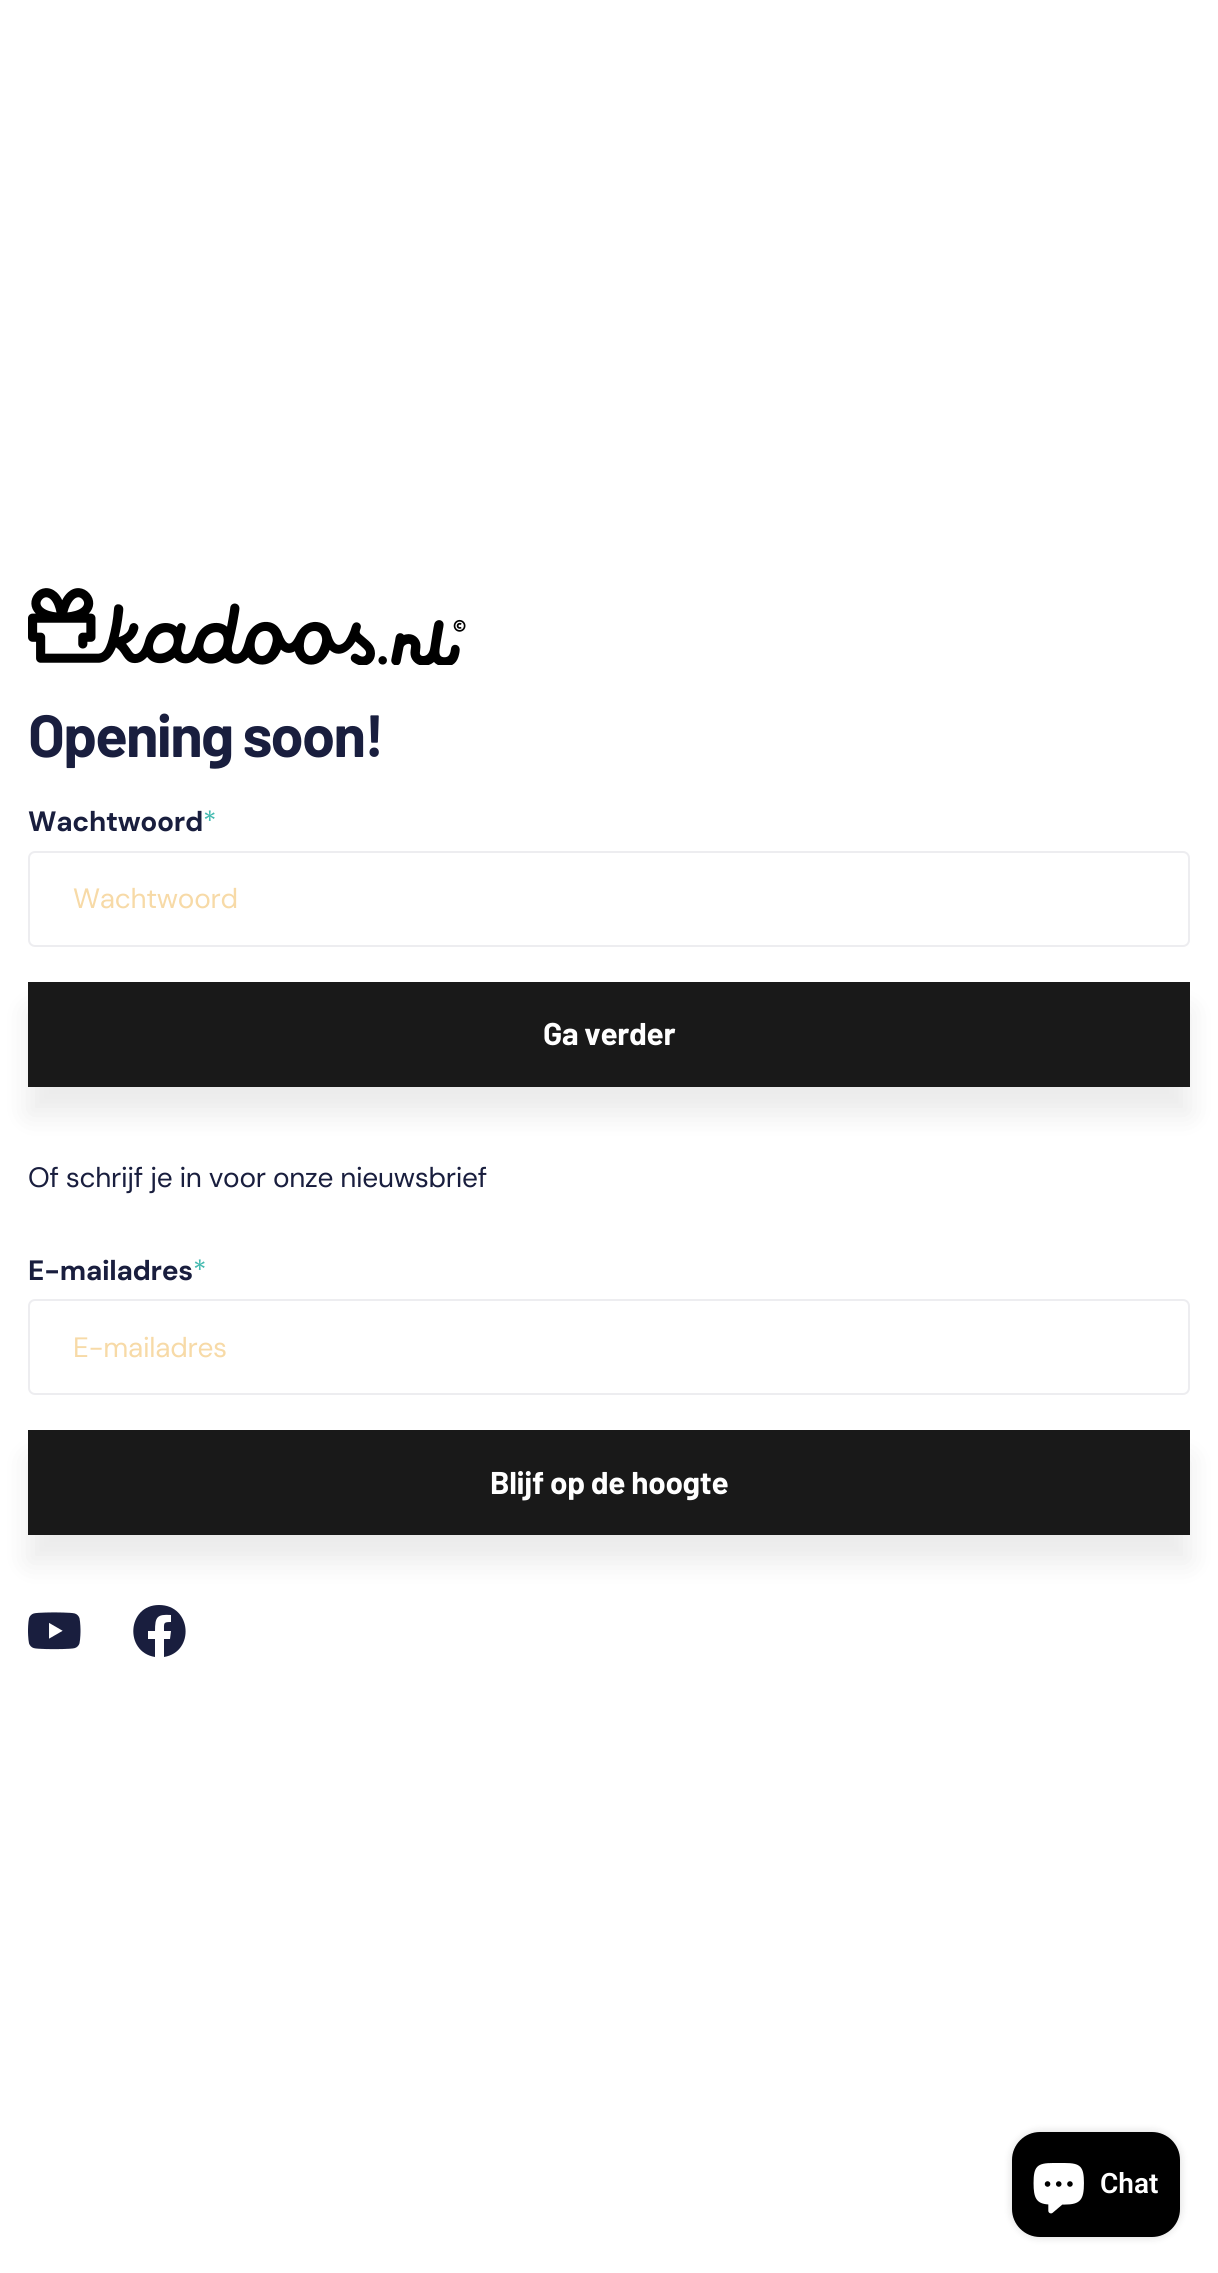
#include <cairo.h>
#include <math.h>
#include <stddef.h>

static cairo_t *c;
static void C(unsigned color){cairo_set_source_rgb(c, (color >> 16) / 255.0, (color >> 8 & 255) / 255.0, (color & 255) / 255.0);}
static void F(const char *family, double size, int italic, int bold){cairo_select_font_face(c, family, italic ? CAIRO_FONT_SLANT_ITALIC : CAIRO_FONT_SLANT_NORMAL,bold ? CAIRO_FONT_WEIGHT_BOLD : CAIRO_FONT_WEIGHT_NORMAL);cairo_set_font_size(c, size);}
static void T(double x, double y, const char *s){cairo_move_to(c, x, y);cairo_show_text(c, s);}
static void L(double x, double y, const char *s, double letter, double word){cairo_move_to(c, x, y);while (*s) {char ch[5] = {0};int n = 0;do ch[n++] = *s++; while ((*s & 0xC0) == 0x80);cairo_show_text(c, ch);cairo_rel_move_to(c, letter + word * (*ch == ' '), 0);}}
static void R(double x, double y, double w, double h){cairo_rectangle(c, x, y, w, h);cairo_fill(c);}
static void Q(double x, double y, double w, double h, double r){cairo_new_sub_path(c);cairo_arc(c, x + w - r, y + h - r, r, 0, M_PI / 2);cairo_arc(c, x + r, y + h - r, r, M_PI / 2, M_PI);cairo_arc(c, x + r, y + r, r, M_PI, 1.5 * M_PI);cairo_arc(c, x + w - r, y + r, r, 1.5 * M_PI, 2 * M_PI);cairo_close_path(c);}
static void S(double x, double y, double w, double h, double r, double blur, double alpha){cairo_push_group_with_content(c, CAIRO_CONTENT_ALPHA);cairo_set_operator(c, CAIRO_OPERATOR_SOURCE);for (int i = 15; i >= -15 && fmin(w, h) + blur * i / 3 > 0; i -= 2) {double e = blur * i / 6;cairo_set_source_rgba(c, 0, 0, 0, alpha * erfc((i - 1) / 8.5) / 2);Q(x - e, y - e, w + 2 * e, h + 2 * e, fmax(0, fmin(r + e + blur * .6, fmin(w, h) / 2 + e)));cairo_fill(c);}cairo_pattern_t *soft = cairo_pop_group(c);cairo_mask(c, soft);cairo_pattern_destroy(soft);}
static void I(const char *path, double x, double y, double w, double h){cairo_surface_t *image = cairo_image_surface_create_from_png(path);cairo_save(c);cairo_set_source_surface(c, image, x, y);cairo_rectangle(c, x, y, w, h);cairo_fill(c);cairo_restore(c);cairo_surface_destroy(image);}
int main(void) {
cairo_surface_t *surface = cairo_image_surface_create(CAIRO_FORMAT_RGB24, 1218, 2273);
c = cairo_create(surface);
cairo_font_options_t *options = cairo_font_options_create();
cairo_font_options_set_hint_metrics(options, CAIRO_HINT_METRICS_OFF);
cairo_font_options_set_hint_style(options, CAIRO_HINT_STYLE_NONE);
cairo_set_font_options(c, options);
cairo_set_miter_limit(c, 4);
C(0xffffff);
cairo_paint(c);
I("1.png",28,588,438,77);
F("Barlow",59.5,0,1);
C(0x191e3e);
L(28,757,"Opening soon!",-1.75,0);
F("DM Sans",28,0,1);
L(28,831,"Wachtwoord",-.3,0);
F("DM Sans",28,0,0);
C(0x44bab0);
L(203,831,"*",-.3,0);
Q(29,852,1160,94,6);
C(0xededf0);
cairo_stroke(c);
C(0xf7daa7);
L(73,908,"Wachtwoord",-.3,0);
C(0x000000);
S(28,1010,1162,105,0,14,.08);
C(0x191919);
R(28,982,1162,105);
F("Barlow",31.5,0,1);
C(0xffffff);
L(543,1045,"Ga verder",-.3,0);
F("DM Sans",28,0,0);
C(0x191e3e);
L(28,1187,"Of schrijf je in voor onze nieuwsbrief",-.3,0);
F("DM Sans",28,0,1);
L(28,1280,"E-mailadres",-.3,0);
F("DM Sans",28,0,0);
C(0x44bab0);
L(193,1280,"*",-.3,0);
Q(29,1300,1160,94,6);
C(0xededf0);
cairo_stroke(c);
C(0xf7daa7);
L(73,1357,"E-mailadres",-.3,0);
C(0x000000);
S(28,1458,1162,105,0,14,.08);
C(0x191919);
R(28,1430,1162,105);
F("Barlow",31.5,0,1);
C(0xffffff);
L(490,1494,"Blijf op de hoogte",-.3,0);
I("2.png",28,1612,53,38);
C(0x191e3e);
cairo_new_path(c);
cairo_move_to(c,159,1605);
cairo_curve_to(c,127,1605,124,1652,155,1657);
cairo_line_to(c,155,1639);
cairo_line_to(c,148,1639);
cairo_line_to(c,148,1631);
cairo_line_to(c,155,1631);
cairo_curve_to(c,155,1617,157,1614,171,1615);
cairo_line_to(c,171,1622);
cairo_curve_to(c,163,1622,164,1623,164,1631);
cairo_line_to(c,171,1631);
cairo_line_to(c,170,1639);
cairo_line_to(c,164,1639);
cairo_line_to(c,164,1657);
cairo_curve_to(c,195,1652,192,1605,159,1605);
cairo_close_path(c);
cairo_fill(c);
C(0x000000);
S(1012,2132,168,105,28,4.5,.15);
C(0x000000);
Q(1012,2132,168,105,28);
cairo_fill(c);
I("3.png",1033,2163,51,51);
F("Roboto SemiBold",28,0,0);
C(0xffffff);
T(1100,2193,"Chat");
cairo_surface_write_to_png(surface, "o.png");
cairo_font_options_destroy(options);
cairo_destroy(c);
cairo_surface_destroy(surface);
return 0;
}
